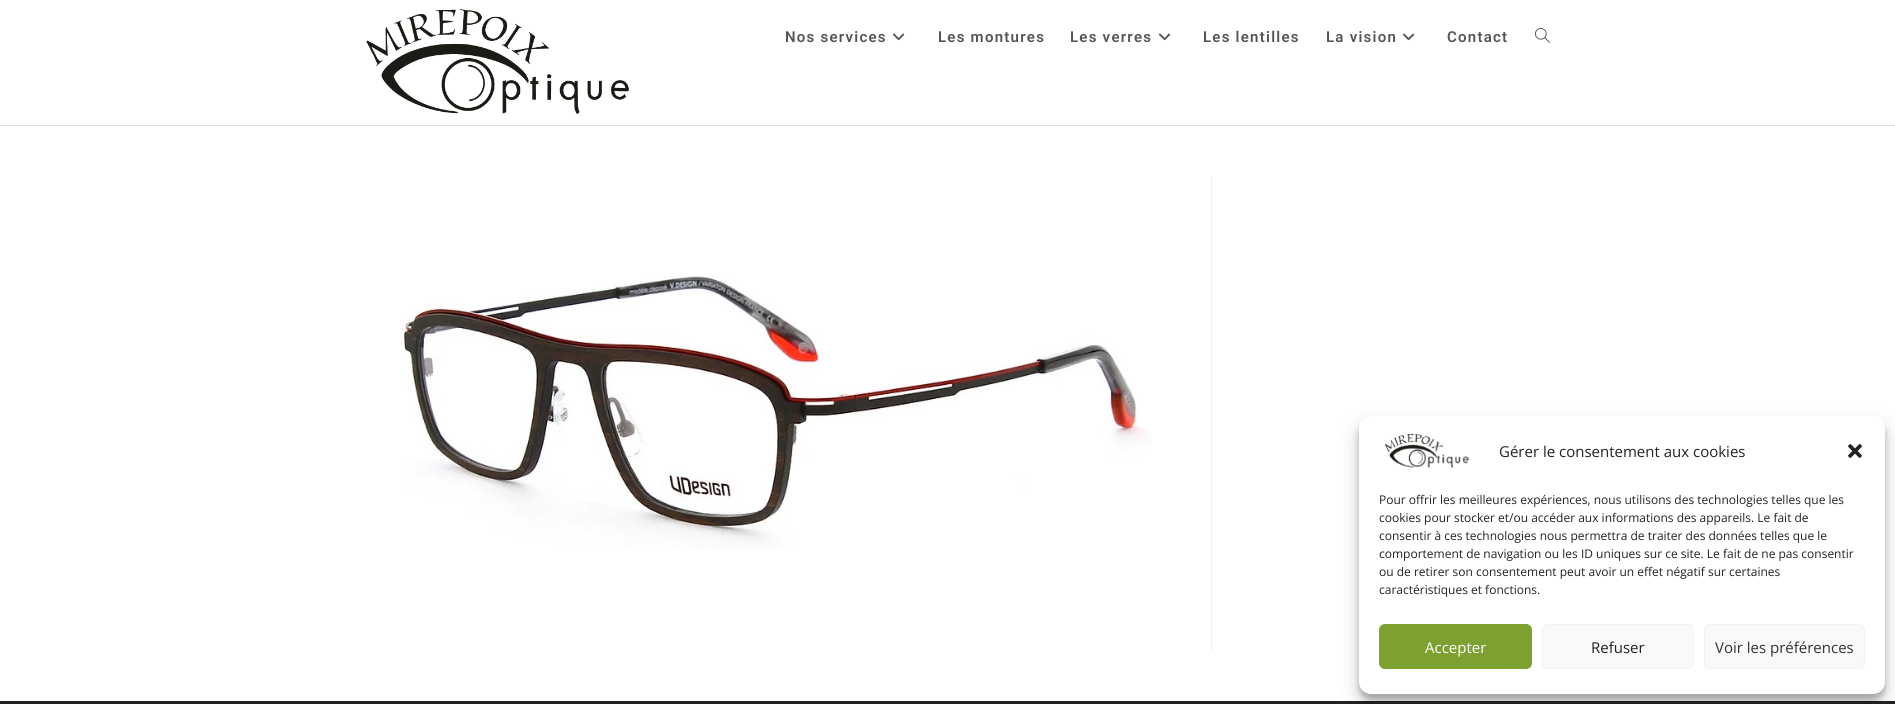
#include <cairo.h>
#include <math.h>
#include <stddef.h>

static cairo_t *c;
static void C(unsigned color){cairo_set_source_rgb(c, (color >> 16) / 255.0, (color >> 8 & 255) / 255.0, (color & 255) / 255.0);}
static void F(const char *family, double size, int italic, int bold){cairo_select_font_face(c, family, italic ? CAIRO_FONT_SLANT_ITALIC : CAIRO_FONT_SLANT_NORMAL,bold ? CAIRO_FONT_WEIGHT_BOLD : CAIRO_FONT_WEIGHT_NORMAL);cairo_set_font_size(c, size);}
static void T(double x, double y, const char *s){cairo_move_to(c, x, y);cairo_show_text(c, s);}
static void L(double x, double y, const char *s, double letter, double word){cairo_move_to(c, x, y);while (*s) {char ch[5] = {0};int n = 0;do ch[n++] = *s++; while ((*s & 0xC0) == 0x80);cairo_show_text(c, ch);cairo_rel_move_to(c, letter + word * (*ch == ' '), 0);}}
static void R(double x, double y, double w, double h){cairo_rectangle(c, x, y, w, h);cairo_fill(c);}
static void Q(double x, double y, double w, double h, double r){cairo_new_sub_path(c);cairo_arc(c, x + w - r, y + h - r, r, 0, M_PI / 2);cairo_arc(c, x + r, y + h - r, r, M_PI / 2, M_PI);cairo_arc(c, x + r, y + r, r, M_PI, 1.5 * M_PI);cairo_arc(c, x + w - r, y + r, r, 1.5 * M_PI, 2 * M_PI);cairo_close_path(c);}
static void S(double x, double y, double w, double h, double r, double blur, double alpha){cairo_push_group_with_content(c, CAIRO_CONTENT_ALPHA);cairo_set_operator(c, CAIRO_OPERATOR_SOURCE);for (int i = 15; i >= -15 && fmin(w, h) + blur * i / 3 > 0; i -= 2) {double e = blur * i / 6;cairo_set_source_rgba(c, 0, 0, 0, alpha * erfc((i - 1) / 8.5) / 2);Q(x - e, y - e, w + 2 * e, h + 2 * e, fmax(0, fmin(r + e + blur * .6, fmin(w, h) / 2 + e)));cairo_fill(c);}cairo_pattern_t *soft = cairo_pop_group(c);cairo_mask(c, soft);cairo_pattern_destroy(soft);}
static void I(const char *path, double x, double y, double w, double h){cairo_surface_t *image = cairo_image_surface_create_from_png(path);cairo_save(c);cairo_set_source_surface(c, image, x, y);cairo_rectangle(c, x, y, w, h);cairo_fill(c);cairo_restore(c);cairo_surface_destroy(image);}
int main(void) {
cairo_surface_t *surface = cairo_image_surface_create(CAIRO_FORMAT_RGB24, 1895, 704);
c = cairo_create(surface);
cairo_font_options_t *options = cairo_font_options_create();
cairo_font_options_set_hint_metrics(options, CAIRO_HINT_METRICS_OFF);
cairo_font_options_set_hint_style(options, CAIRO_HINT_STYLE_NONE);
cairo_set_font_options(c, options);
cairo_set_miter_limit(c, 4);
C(0xffffff);
cairo_paint(c);
C(0xdddddd);
R(0,125,1895,1);
I("1.png",366,9,263,105);
F("Roboto SemiBold",15,0,0);
C(0x555555);
L(785,42,"Nos services",1.25,0);
I("2.png",893,33,12,8);
L(938,42,"Les montures",1.25,0);
L(1070,42,"Les verres",1.25,0);
I("2.png",1159,33,12,8);
L(1203,42,"Les lentilles",1.25,0);
L(1326,42,"La vision",1.25,0);
I("2.png",1403,33,12,8);
L(1447,42,"Contact",1.25,0);
I("3.png",1535,27,15,16);
C(0xf1f1f1);
R(1211,176,1,475);
I("4.png",401,274,750,276);
C(0x222222);
R(0,701,1895,3);
C(0x000000);
S(1359,422,526,278,12,3,.23);
S(1359,426,526,278,12,10,.19);
C(0xffffff);
Q(1359,416,526,278,12);
cairo_fill(c);
I("5.png",1384,433,86,35);
F("Open Sans",15,0,0);
C(0x222222);
T(1499,457,"Gérer le consentement aux cookies");
I("6.png",1848,444,14,14);
F("Open Sans",12,0,0);
T(1379,504,"Pour offrir les meilleures expériences, nous utilisons des technologies telles que les");
T(1379,522,"cookies pour stocker et/ou accéder aux informations des appareils. Le fait de");
T(1379,540,"consentir à ces technologies nous permettra de traiter des données telles que le");
T(1379,558,"comportement de navigation ou les ID uniques sur ce site. Le fait de ne pas consentir");
T(1379,576,"ou de retirer son consentement peut avoir un effet négatif sur certaines");
T(1379,594,"caractéristiques et fonctions.");
C(0x7ca130);
Q(1379.5,624.5,152,44,5.5);
cairo_fill_preserve(c);
cairo_set_line_width(c,1);
cairo_stroke(c);
F("Open Sans",15,0,0);
C(0xffffff);
T(1425,653,"Accepter");
C(0xf9f9f9);
Q(1542.5,624.5,151,44,5.5);
cairo_fill_preserve(c);
C(0xf2f2f2);
cairo_stroke(c);
C(0x222222);
T(1591,653,"Refuser");
C(0xf9f9f9);
Q(1704.5,624.5,160,44,5.5);
cairo_fill_preserve(c);
C(0xf2f2f2);
cairo_stroke(c);
C(0x333333);
T(1715,653,"Voir les préférences");
cairo_surface_write_to_png(surface, "o.png");
cairo_font_options_destroy(options);
cairo_destroy(c);
cairo_surface_destroy(surface);
return 0;
}
